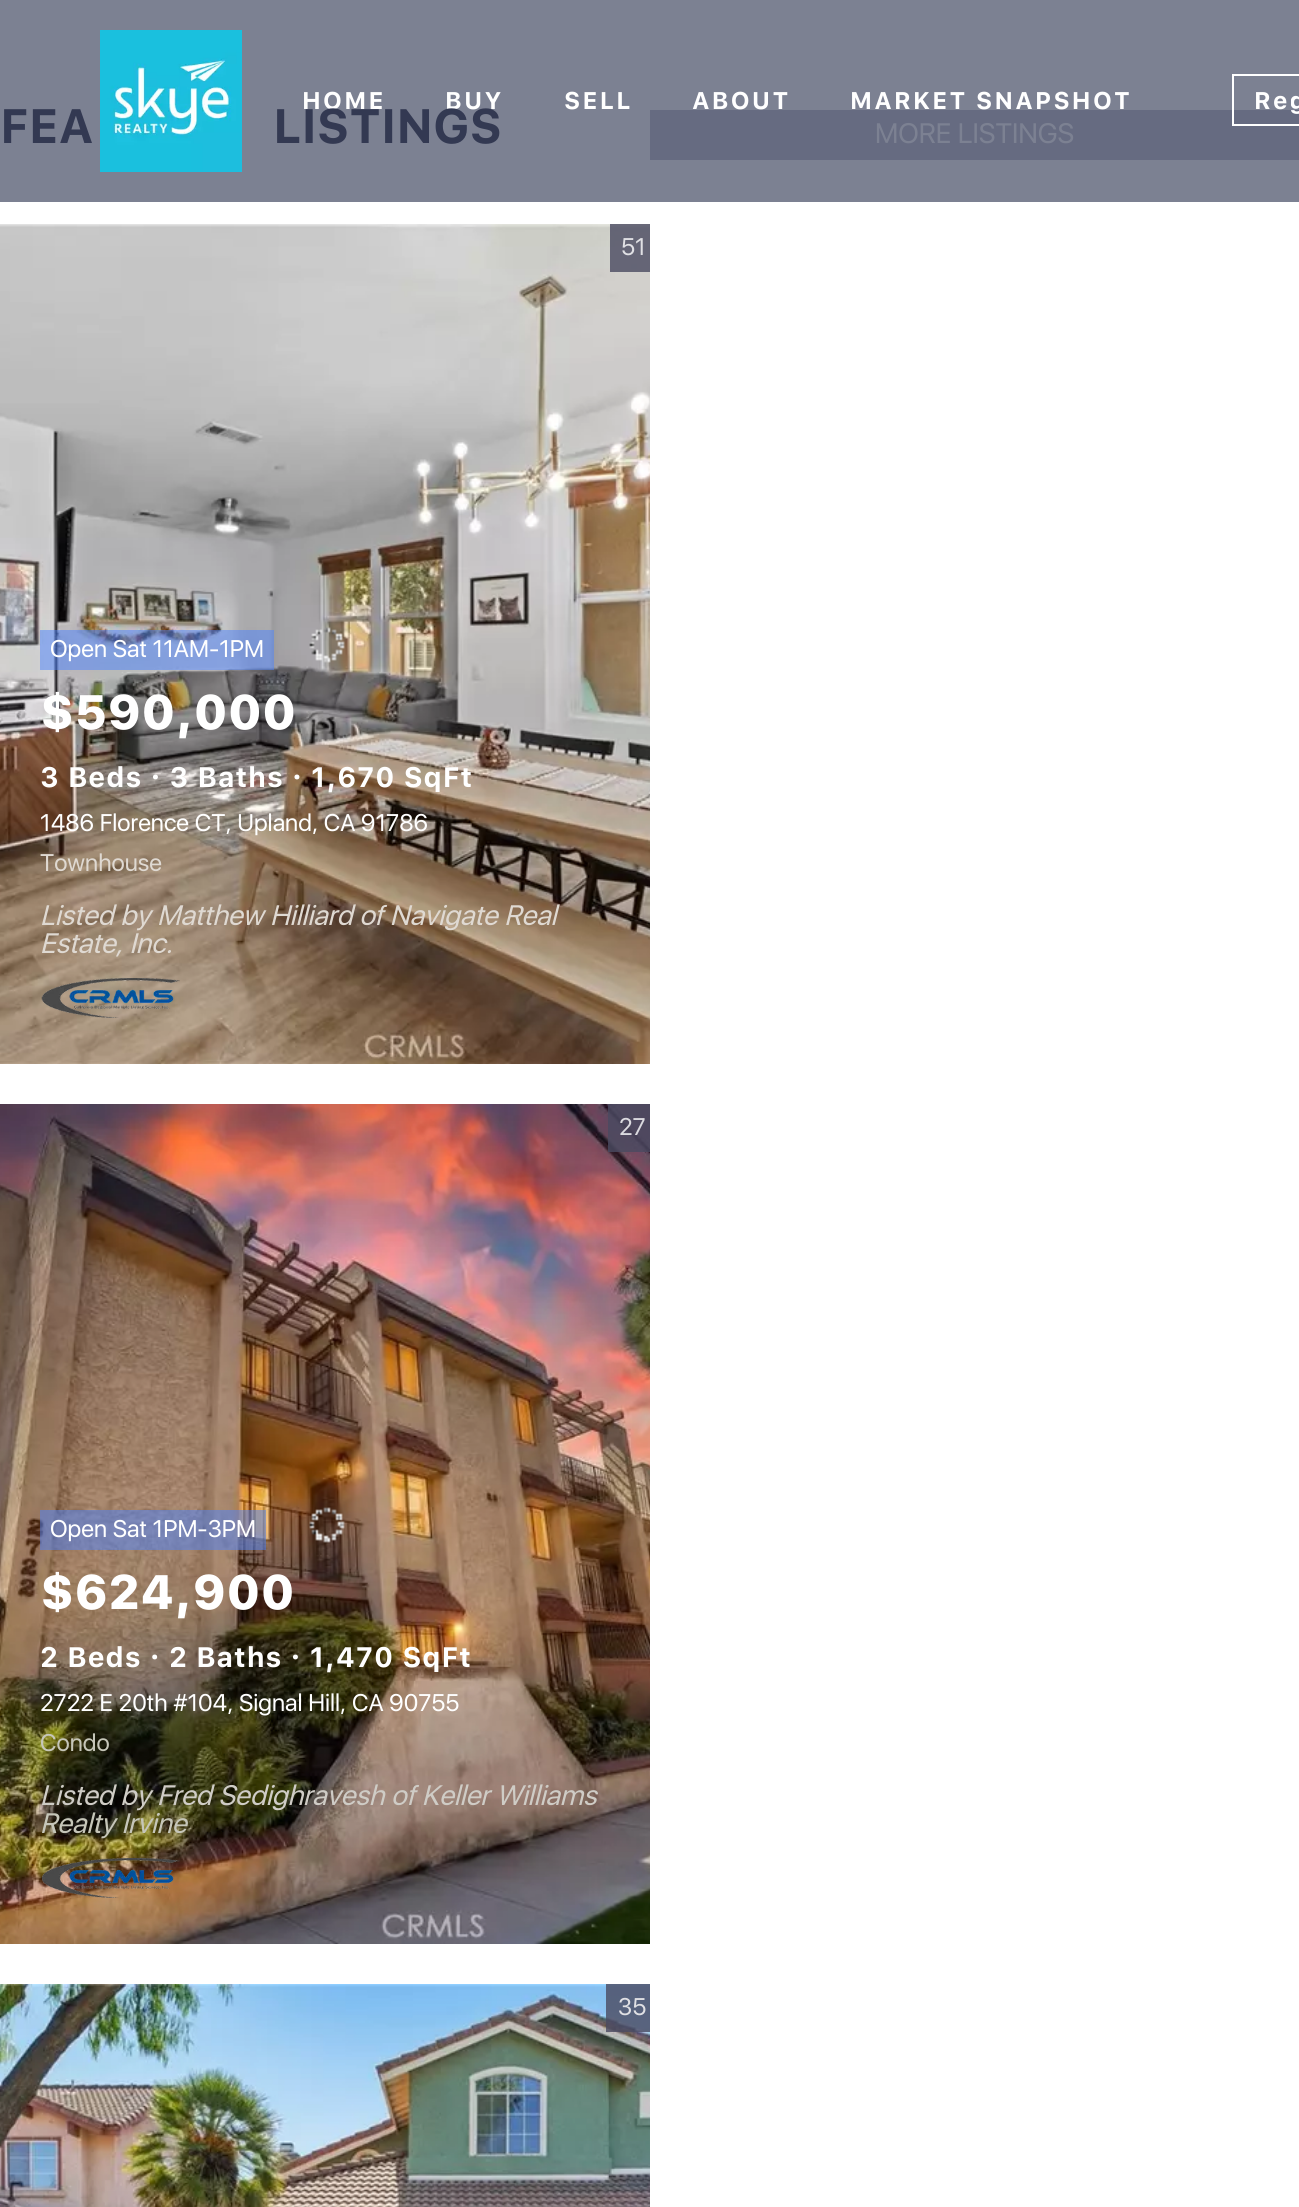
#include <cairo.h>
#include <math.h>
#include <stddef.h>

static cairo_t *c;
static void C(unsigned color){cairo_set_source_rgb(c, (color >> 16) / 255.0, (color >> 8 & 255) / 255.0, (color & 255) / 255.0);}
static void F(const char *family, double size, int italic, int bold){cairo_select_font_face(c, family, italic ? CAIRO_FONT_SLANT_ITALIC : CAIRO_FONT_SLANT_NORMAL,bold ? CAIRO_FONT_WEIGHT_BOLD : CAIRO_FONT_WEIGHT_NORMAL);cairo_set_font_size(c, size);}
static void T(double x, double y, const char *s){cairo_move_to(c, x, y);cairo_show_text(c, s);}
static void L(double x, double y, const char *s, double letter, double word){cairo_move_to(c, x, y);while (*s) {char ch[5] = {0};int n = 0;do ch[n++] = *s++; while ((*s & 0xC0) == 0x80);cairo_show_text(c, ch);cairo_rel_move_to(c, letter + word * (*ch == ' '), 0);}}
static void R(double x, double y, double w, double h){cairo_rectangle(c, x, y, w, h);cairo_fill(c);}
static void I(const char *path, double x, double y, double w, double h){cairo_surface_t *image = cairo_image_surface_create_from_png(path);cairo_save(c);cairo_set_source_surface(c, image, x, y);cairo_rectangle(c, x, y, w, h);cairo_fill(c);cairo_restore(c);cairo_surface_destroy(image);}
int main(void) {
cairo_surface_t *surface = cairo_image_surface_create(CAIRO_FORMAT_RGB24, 1299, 2207);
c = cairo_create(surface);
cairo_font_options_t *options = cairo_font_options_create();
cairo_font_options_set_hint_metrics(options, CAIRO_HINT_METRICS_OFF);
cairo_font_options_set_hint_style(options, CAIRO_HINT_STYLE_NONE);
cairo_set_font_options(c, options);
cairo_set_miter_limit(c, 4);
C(0xffffff);
cairo_paint(c);
C(0x7c8192);
R(0,0,1299,202);
I("1.png",100,30,142,142);
F("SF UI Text",24,0,1);
C(0xffffff);
L(302,109,"HOME",2.25,0);
L(445,109,"BUY",2.25,0);
L(564,109,"SELL",2.25,0);
L(692,109,"ABOUT",2.25,0);
L(850,109,"MARKET SNAPSHOT",2.25,0);
C(0x666b81);
R(650,110,649,50);
cairo_rectangle(c,1233,75,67,50);
C(0xffffff);
cairo_stroke(c);
L(1254,109,"Reg",2.25,0);
F("SF UI Text",48,0,1);
C(0x333952);
T(0,143,"FEA");
T(273,143,"LISTINGS");
F("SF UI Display",28,0,0);
C(0x7c8192);
T(875,143,"MORE LISTINGS");
I("2.png",0,224,650,840);
I("3.png",309,627,36,36);
cairo_set_source_rgba(c,0.29,0.29,0.376,0.8);
R(610,224,40,48);
F("SF UI Display",24,0,0);
C(0xe0e0e4);
T(621,255,"51");
cairo_set_source_rgba(c,0.298,0.518,1,0.5);
R(40,630,234,40);
C(0xffffff);
T(50,657,"Open Sat 11AM-1PM");
F("SF UI Text Black",48,0,0);
T(40,729,"$590,000");
F("SF UI Text",28,0,1);
L(40,787,"3 Beds · 3 Baths · 1,670 SqFt",1,0);
F("SF UI Display",24,0,0);
T(40,831,"1486 Florence CT, Upland, CA 91786");
C(0xdfd9d2);
T(40,871,"Townhouse");
F("SF UI Display",28,1,0);
T(40,925,"Listed by Matthew Hilliard of Navigate Real");
T(40,953,"Estate, Inc.");
I("4.png",41,978,139,40);
I("5.png",0,1104,650,840);
I("6.png",309,1507,36,36);
cairo_set_source_rgba(c,0.29,0.29,0.376,0.8);
R(608,1104,42,48);
F("SF UI Display",24,0,0);
C(0xdbdadf);
T(619,1135,"27");
cairo_set_source_rgba(c,0.298,0.518,1,0.5);
R(40,1510,226,40);
C(0xffffff);
T(50,1537,"Open Sat 1PM-3PM");
F("SF UI Text Black",48,0,0);
T(40,1609,"$624,900");
F("SF UI Text",28,0,1);
L(40,1667,"2 Beds · 2 Baths · 1,470 SqFt",1,0);
F("SF UI Display",24,0,0);
T(40,1711,"2722 E 20th #104, Signal Hill, CA 90755");
C(0xc6c6b9);
T(40,1751,"Condo");
F("SF UI Display",28,1,0);
C(0xcfccc6);
T(40,1805,"Listed by Fred Sedighravesh of Keller Williams");
C(0xc6c6b9);
T(40,1833,"Realty Irvine");
I("7.png",41,1858,139,40);
I("8.png",0,1984,650,223);
cairo_set_source_rgba(c,0.29,0.29,0.376,0.8);
R(606,1984,44,48);
F("SF UI Display",24,0,0);
C(0xe0e0e4);
T(618,2015,"35");
cairo_surface_write_to_png(surface, "o.png");
cairo_font_options_destroy(options);
cairo_destroy(c);
cairo_surface_destroy(surface);
return 0;
}
